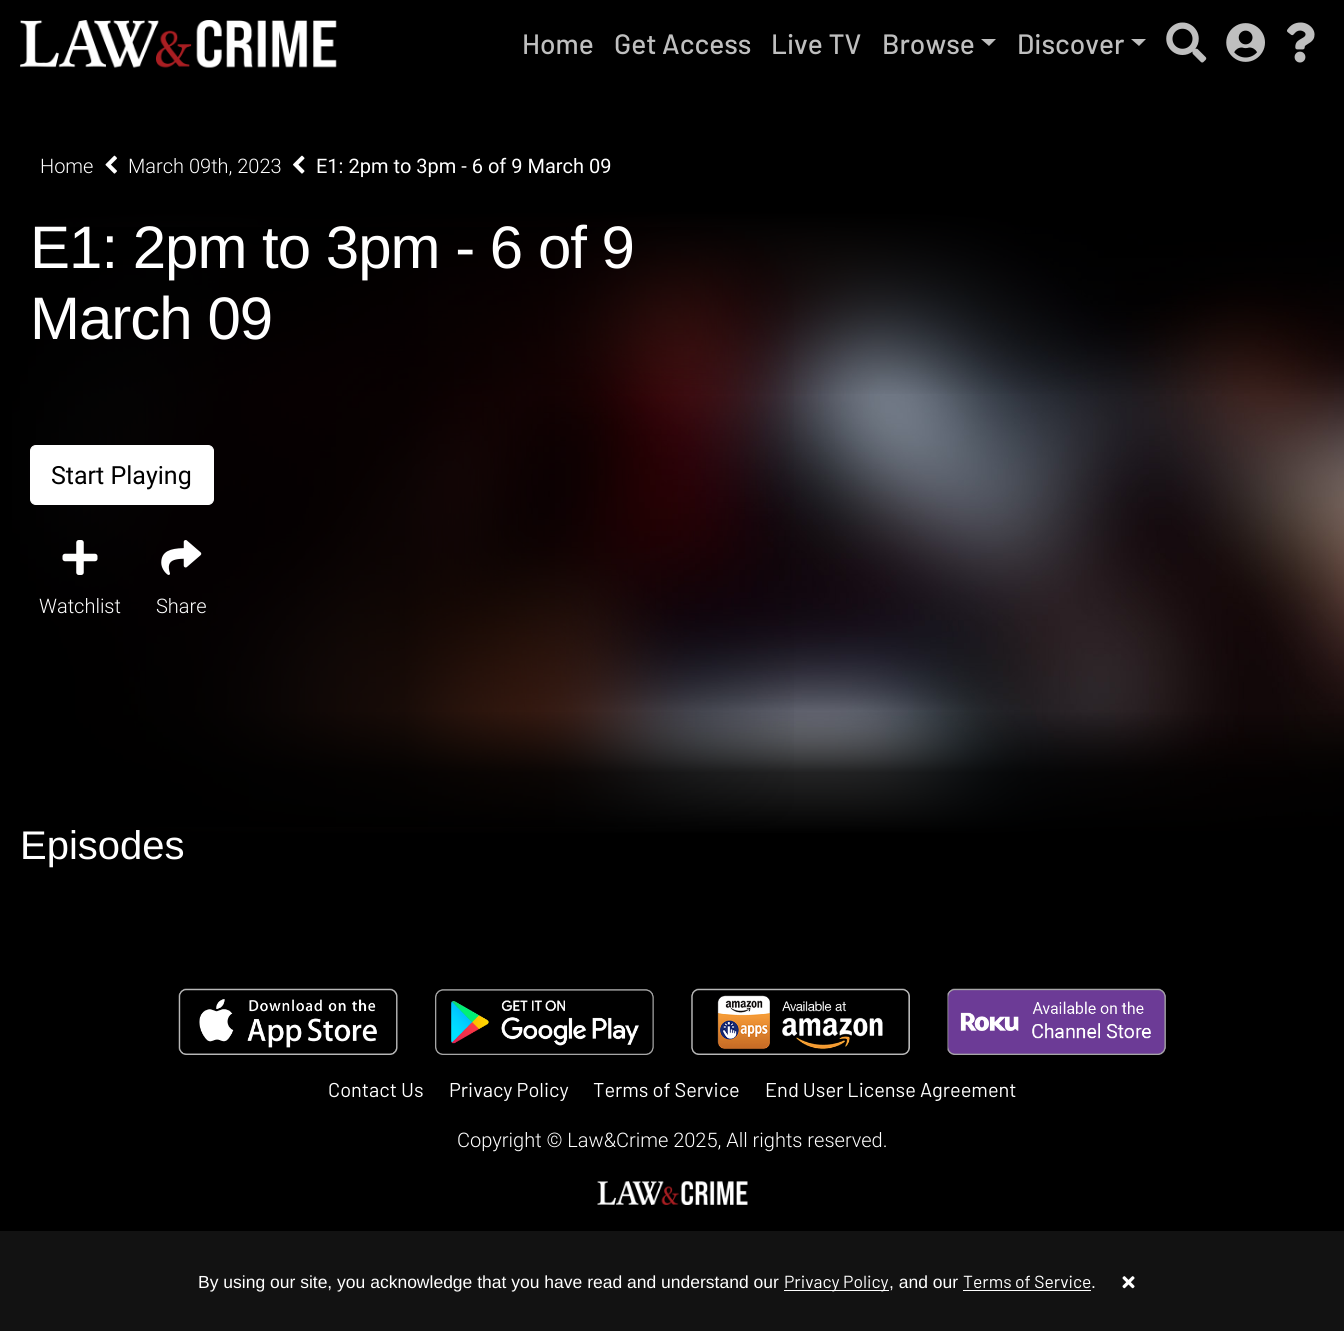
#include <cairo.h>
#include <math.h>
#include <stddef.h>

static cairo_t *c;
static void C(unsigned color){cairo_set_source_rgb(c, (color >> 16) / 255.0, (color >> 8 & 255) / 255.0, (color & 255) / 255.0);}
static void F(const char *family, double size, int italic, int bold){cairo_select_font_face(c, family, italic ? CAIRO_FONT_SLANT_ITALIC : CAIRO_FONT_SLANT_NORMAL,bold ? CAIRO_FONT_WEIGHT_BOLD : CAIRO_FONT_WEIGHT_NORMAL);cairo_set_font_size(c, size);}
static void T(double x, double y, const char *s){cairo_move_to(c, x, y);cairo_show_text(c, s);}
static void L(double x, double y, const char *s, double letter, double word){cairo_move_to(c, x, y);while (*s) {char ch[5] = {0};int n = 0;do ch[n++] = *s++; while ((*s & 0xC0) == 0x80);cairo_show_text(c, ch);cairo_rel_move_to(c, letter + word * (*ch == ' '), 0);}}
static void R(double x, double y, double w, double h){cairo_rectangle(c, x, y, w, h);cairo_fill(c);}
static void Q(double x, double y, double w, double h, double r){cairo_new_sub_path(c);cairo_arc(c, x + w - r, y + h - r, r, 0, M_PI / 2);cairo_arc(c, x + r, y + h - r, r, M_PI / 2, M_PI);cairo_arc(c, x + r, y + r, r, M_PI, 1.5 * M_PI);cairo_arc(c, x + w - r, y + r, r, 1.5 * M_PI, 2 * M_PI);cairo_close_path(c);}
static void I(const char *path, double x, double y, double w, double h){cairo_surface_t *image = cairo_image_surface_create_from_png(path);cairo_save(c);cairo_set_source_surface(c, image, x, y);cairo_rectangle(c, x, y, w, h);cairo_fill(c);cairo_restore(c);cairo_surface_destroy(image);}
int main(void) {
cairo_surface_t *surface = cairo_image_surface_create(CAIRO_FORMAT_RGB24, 1344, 1331);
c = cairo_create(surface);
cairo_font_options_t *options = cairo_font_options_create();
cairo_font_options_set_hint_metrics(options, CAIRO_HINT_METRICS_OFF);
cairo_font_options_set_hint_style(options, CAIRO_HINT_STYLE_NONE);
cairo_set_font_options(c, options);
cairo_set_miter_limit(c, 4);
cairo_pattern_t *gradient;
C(0x000000);
cairo_paint(c);
I("1.png",20,20,317,48);
F("Barlow Medium",28,0,0);
C(0xbfbfbf);
T(522,54,"Home");
T(614,54,"Get Access");
T(771,54,"Live TV");
T(882,54,"Browse");
cairo_new_path(c);
cairo_move_to(c,981,39);
cairo_line_to(c,996,39);
cairo_line_to(c,989,46);
cairo_close_path(c);
cairo_fill(c);
T(1017,54,"Discover");
cairo_new_path(c);
cairo_move_to(c,1131,39);
cairo_line_to(c,1146,39);
cairo_line_to(c,1139,46);
cairo_close_path(c);
cairo_fill(c);
I("2.png",1166,22,41,41);
I("3.png",1226,23,39,39);
I("4.png",1287,22,28,41);
F("Roboto Light",20,0,0);
C(0xffffff);
T(40,173,"Home");
I("5.png",105,155,12,19);
T(128,173,"March 09th, 2023");
I("6.png",293,155,12,19);
F("Roboto",20,0,0);
T(316,173,"E1: 2pm to 3pm - 6 of 9 March 09");
I("7.png",12,212,1332,621);
gradient = cairo_pattern_create_linear(673,835,673,211);
cairo_pattern_add_color_stop_rgba(gradient,0,0,0,0,1);
cairo_pattern_add_color_stop_rgba(gradient,.1,0,0,0,.8);
cairo_pattern_add_color_stop_rgba(gradient,.2,0,0,0,0);
cairo_pattern_add_color_stop_rgba(gradient,1,0,0,0,0);
cairo_set_source(c,gradient);
cairo_pattern_destroy(gradient);
R(12,712,1332,121);
gradient = cairo_pattern_create_linear(673,211,673,835);
cairo_pattern_add_color_stop_rgba(gradient,0,0,0,0,1);
cairo_pattern_add_color_stop_rgba(gradient,.3,0,0,0,0);
cairo_pattern_add_color_stop_rgba(gradient,1,0,0,0,0);
cairo_set_source(c,gradient);
cairo_pattern_destroy(gradient);
R(12,212,1332,182);
gradient = cairo_pattern_create_linear(0,523,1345,523);
cairo_pattern_add_color_stop_rgba(gradient,0,0,0,0,1);
cairo_pattern_add_color_stop_rgba(gradient,.3,0,0,0,.8);
cairo_pattern_add_color_stop_rgba(gradient,.6,0,0,0,0);
cairo_pattern_add_color_stop_rgba(gradient,1,0,0,0,0);
cairo_set_source(c,gradient);
cairo_pattern_destroy(gradient);
R(12,227,782,600);
F("Liberation Sans",60,0,0);
C(0xffffff);
L(30,268,"E1: 2pm to 3pm - 6 of 9",-1,0);
L(30,339,"March 09",-1,0);
Q(30.5,445.5,183,59,5.5);
cairo_fill_preserve(c);
cairo_set_line_width(c,1);
cairo_stroke(c);
F("Roboto",25,0,0);
C(0x000000);
T(51,484,"Start Playing");
I("8.png",62,540,36,35);
F("Roboto Light",20,0,0);
C(0xffffff);
T(39,613,"Watchlist");
I("9.png",161,540,41,35);
T(156,613,"Share");
F("Liberation Sans",40,0,0);
T(20,859,"Episodes");
I("10.png",178,988,220,67);
I("11.png",435,989,219,66);
I("12.png",691,988,219,67);
I("13.png",947,988,219,67);
F("Barlow",20,0,0);
T(328,1097,"Contact Us");
T(449,1097,"Privacy Policy");
T(593,1097,"Terms of Service");
T(765,1097,"End User License Agreement");
F("Roboto Light",20,0,0);
T(457,1147,"Copyright © Law&Crime 2025, All rights reserved.");
I("14.png",597,1181,151,24);
C(0x121212);
R(0,1231,1344,100);
F("Liberation Sans",17.5,0,0);
C(0xffffff);
T(198,1288,"By using our site, you acknowledge that you have read and understand our");
R(784,1290,105,1);
F("Barlow",17.5,0,0);
T(784,1288,"Privacy Policy");
F("Liberation Sans",17.5,0,0);
T(889,1288,", and our");
F("Barlow",17.5,0,0);
T(963,1288,"Terms of Service");
R(963,1290,128,1);
F("Liberation Sans",17.5,0,0);
T(1091,1288,".");
I("15.png",1122,1276,13,13);
cairo_surface_write_to_png(surface, "o.png");
cairo_font_options_destroy(options);
cairo_destroy(c);
cairo_surface_destroy(surface);
return 0;
}
